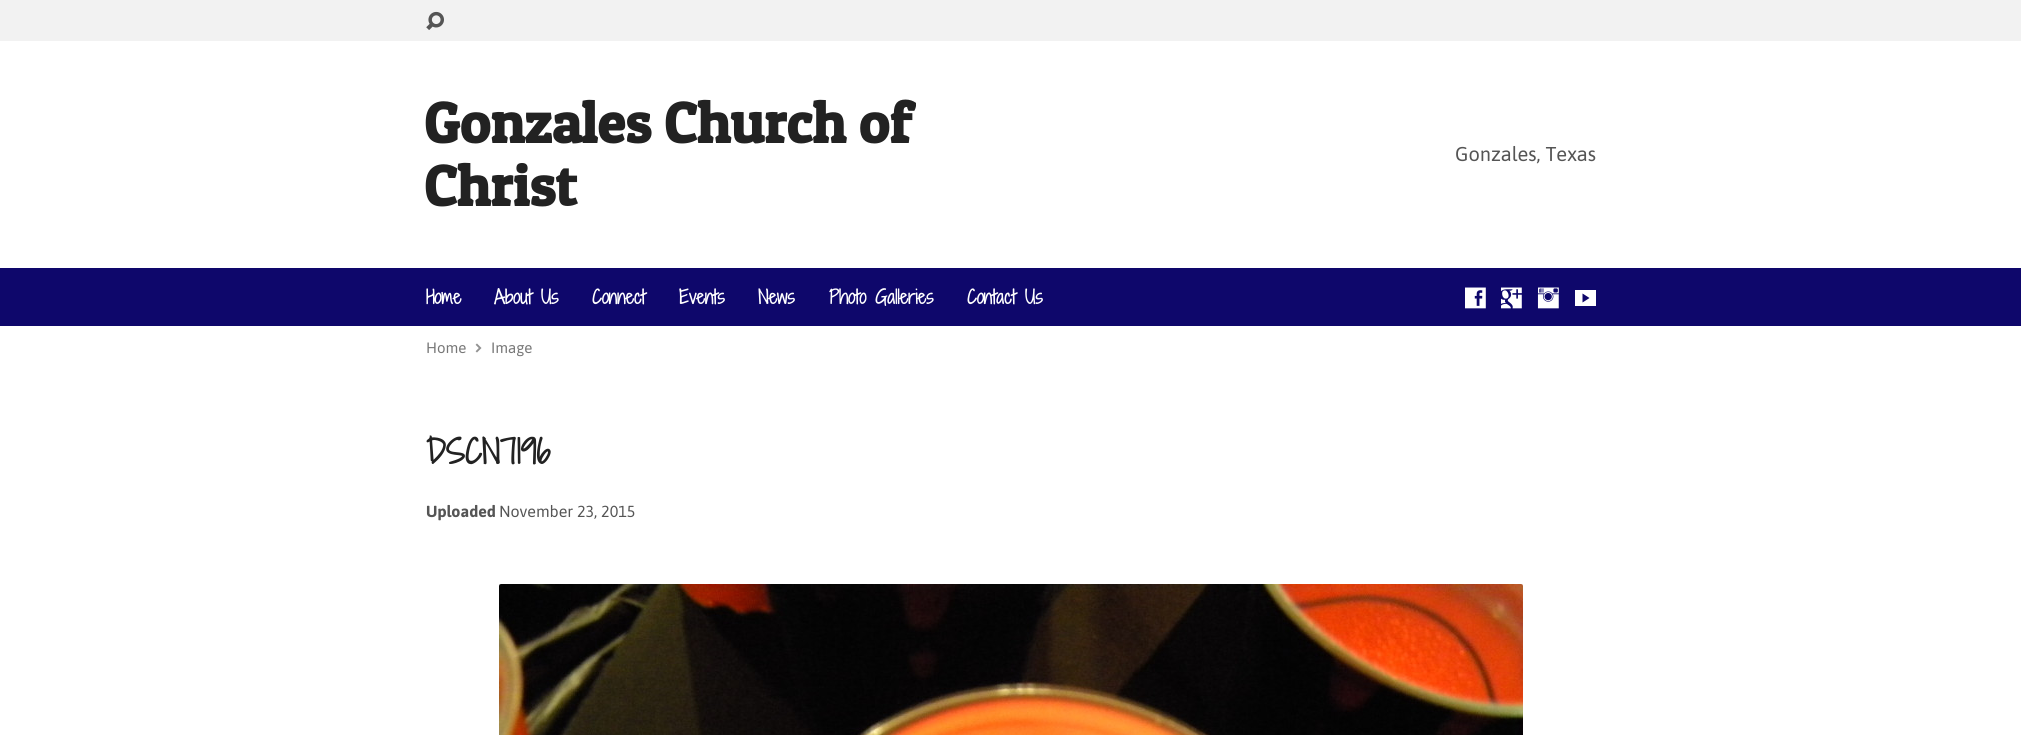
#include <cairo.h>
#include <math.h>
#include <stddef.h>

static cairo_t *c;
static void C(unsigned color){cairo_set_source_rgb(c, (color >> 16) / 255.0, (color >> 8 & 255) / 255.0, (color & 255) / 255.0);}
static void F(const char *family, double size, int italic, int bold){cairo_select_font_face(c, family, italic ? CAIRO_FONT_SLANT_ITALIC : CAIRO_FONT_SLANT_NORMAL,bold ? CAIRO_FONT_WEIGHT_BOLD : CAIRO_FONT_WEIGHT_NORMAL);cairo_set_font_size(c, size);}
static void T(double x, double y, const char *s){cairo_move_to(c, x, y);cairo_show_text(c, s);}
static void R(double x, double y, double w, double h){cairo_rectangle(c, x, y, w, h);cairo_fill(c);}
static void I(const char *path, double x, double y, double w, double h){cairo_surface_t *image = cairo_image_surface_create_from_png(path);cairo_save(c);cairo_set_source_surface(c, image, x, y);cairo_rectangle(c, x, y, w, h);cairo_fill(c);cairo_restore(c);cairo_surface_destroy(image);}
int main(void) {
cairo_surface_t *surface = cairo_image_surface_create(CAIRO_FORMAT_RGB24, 2021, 735);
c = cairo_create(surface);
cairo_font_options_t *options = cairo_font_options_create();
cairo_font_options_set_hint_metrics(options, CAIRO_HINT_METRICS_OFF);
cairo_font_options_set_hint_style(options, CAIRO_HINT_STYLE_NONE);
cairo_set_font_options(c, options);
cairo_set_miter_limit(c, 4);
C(0xffffff);
cairo_paint(c);
C(0xf2f2f2);
R(0,0,2021,41);
I("1.png",426,11,18,19);
F("Patua One",57.5,0,1);
C(0x222222);
T(424,143,"Gonzales Church of");
T(424,206,"Christ");
F("Asap",20,0,0);
C(0x555555);
T(1455,161,"Gonzales, Texas");
C(0x0e076b);
R(0,268,2021,58);
F("Shadows Into Light Two",18.25,0,1);
C(0xffffff);
T(426,304,"Home");
T(494,304,"About Us");
T(592,304,"Connect");
T(679,304,"Events");
T(758,304,"News");
T(829,304,"Photo Galleries");
T(967,304,"Contact Us");
I("2.png",1465,287,21,22);
I("3.png",1501,287,21,22);
I("4.png",1537,287,22,22);
cairo_new_path(c);
cairo_move_to(c,1596,306);
cairo_line_to(c,1575,306);
cairo_line_to(c,1575,290);
cairo_line_to(c,1596,290);
cairo_close_path(c);
cairo_move_to(c,1582.5,302.5);
cairo_line_to(c,1589.5,298);
cairo_line_to(c,1582.5,293.5);
cairo_close_path(c);
cairo_fill(c);
F("Asap",15,0,0);
C(0x777777);
T(426,353,"Home");
I("5.png",475,343,7,10);
T(491,353,"Image");
F("Shadows Into Light Two",32,0,1);
C(0x222222);
T(426,464,"DSCN7196");
F("Asap",16,0,1);
C(0x555555);
T(426,517,"Uploaded");
F("Asap",16,0,0);
T(499,517,"November 23, 2015");
I("6.png",499,584,1024,151);
cairo_surface_write_to_png(surface, "o.png");
cairo_font_options_destroy(options);
cairo_destroy(c);
cairo_surface_destroy(surface);
return 0;
}
